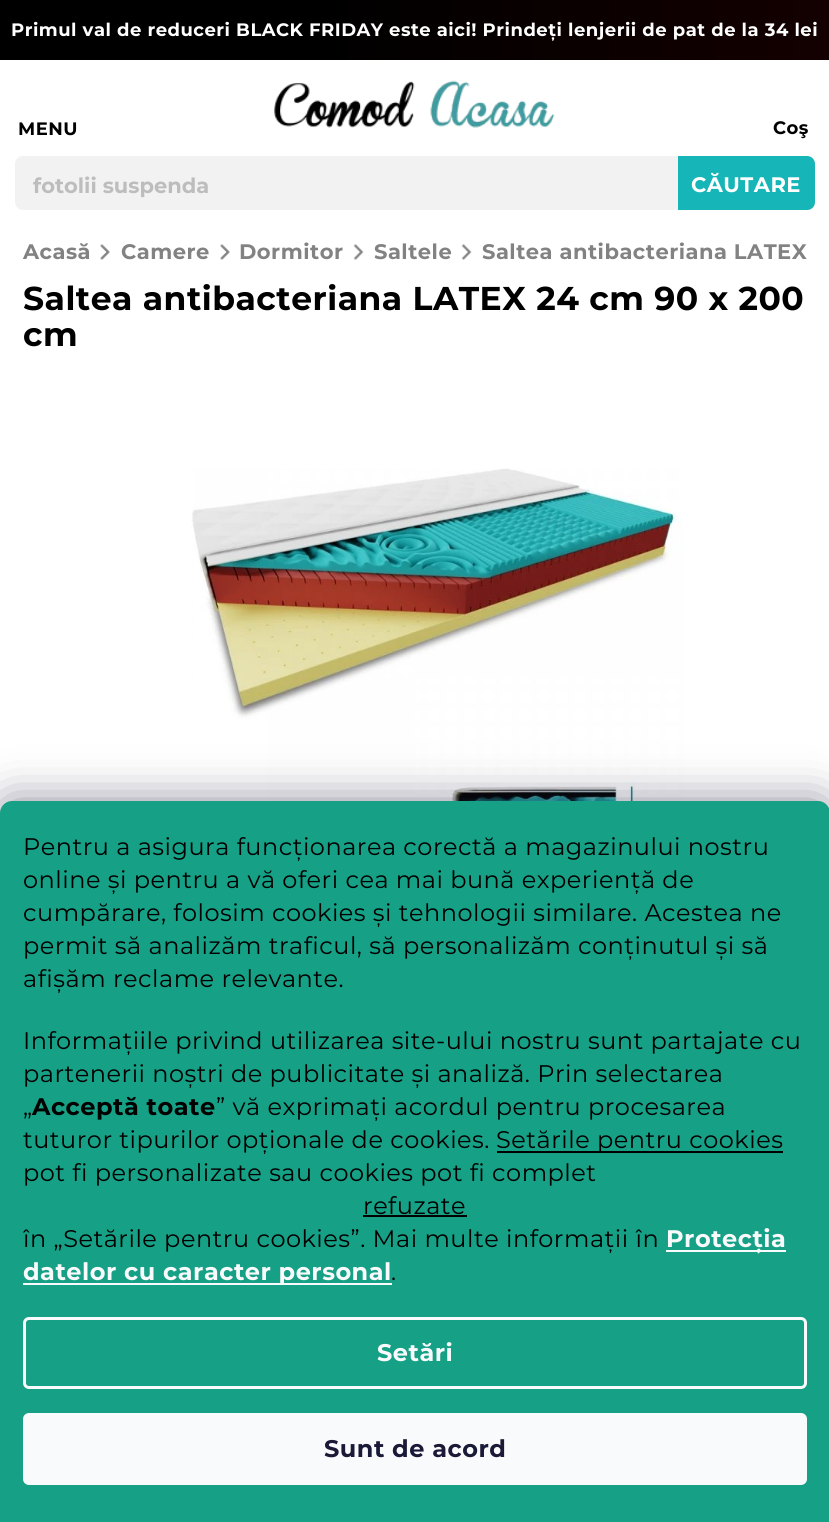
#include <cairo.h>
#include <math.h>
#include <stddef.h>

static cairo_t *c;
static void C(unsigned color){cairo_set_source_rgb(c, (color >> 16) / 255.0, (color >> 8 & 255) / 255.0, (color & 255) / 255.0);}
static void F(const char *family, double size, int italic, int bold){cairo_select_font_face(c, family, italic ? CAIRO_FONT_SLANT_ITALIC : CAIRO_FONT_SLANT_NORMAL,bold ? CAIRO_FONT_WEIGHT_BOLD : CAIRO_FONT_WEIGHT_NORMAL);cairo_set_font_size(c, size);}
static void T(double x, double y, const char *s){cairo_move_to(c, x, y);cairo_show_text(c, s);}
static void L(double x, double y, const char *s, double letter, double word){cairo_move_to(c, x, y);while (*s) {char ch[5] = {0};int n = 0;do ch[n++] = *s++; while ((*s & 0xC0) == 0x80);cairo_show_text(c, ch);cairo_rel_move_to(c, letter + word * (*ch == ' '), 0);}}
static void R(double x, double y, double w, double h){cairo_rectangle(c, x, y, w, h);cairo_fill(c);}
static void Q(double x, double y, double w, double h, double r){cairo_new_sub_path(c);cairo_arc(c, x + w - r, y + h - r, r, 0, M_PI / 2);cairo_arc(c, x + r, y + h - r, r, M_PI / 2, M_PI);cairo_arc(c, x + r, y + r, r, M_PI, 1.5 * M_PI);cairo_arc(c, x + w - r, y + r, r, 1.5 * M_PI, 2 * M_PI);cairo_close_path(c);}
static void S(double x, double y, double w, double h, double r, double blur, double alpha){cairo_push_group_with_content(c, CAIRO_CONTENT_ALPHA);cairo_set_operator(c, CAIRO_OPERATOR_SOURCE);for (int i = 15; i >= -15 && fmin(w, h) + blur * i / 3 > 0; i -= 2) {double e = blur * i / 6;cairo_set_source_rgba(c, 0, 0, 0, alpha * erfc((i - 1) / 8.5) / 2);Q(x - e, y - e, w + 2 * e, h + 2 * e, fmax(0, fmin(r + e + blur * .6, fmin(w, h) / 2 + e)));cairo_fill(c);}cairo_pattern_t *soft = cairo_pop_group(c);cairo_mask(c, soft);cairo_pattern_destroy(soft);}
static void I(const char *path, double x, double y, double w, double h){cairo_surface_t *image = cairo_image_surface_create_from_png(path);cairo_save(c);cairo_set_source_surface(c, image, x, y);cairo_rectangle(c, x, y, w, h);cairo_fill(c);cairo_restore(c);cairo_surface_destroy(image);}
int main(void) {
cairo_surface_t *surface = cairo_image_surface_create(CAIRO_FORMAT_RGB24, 829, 1522);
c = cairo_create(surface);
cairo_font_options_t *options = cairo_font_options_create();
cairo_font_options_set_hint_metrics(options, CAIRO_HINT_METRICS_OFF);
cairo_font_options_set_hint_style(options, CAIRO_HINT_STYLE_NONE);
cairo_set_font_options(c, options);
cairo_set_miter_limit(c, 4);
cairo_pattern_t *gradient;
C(0xffffff);
cairo_paint(c);
gradient = cairo_pattern_create_linear(0,30,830,30);
cairo_pattern_add_color_stop_rgba(gradient,0,0,0,0,1);
cairo_pattern_add_color_stop_rgba(gradient,.37,0,0,0,1);
cairo_pattern_add_color_stop_rgba(gradient,1,0.078,0,0,1);
cairo_set_source(c,gradient);
cairo_pattern_destroy(gradient);
R(0,0,829,60);
F("Montserrat",18,0,1);
C(0xffffff);
L(11,36,"Primul val de reduceri BLACK FRIDAY este aici! Prindeți lenjerii de pat de la 34 lei",.5,0);
I("1.png",274,80,281,48);
C(0x000000);
L(773,134,"Coş",.5,0);
C(0xf2f2f2);
Q(15,156,800,54,8);
cairo_fill(c);
F("Montserrat",21,0,1);
C(0xbdbdbd);
T(33,193,"fotolii suspenda");
C(0x16b6b8);
cairo_new_path(c);
cairo_move_to(c,678,156);
cairo_line_to(c,807,156);
cairo_curve_to(c,811.5,156,815,159.5,815,164);
cairo_line_to(c,815,202);
cairo_curve_to(c,815,206.5,811.5,210,807,210);
cairo_line_to(c,678,210);
cairo_close_path(c);
cairo_fill(c);
C(0xffffff);
L(691,192,"CĂUTARE",.5,0);
F("Montserrat",18,0,1);
C(0x000000);
L(18,135,"MENU",.5,0);
F("Montserrat",21,0,1);
C(0x828282);
L(23,259,"Acasă",.5,0);
I("2.png",100,244,10,16);
L(121,259,"Camere",.5,0);
I("2.png",220,244,10,16);
L(239,259,"Dormitor",.5,0);
I("3.png",353,244,11,16);
L(374,259,"Saltele",.5,0);
I("4.png",461,244,11,16);
L(482,259,"Saltea antibacteriana LATEX",.5,0);
F("Montserrat",33,0,1);
C(0x000000);
L(23,310,"Saltea antibacteriana LATEX 24 cm 90 x 200",.5,0);
L(23,346,"cm",.5,0);
I("5.png",191,468,493,333);
C(0x1b1939);
S(0,801,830,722,12,22.5,.5);
C(0x16a085);
cairo_new_path(c);
cairo_move_to(c,12,801);
cairo_line_to(c,818,801);
cairo_curve_to(c,824.5,801,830,806.5,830,813);
cairo_line_to(c,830,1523);
cairo_line_to(c,0,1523);
cairo_line_to(c,0,813);
cairo_curve_to(c,0,806.5,5.5,801,12,801);
cairo_close_path(c);
cairo_fill(c);
F("Montserrat",24,0,0);
C(0x000000);
L(23,855,"Pentru a asigura funcționarea corectă a magazinului nostru",.5,0);
L(23,888,"online și pentru a vă oferi cea mai bună experiență de",.5,0);
L(23,921,"cumpărare, folosim cookies și tehnologii similare. Acestea ne",.5,0);
L(23,954,"permit să analizăm traficul, să personalizăm conținutul și să",.5,0);
L(23,987,"afișăm reclame relevante.",.5,0);
L(23,1049,"Informațiile privind utilizarea site-ului nostru sunt partajate cu",.5,0);
L(23,1082,"partenerii noștri de publicitate și analiză. Prin selectarea",.5,0);
L(23,1115,"„",.5,0);
F("Montserrat",24,0,1);
L(32,1115,"Acceptă toate",.5,0);
F("Montserrat",24,0,0);
L(216,1115,"” vă exprimați acordul pentru procesarea",.5,0);
L(23,1148,"tuturor tipurilor opționale de cookies.",.5,0);
R(497,1151,286,2);
L(496,1148,"Setările pentru cookies",.5,0);
L(23,1181,"pot fi personalizate sau cookies pot fi complet",.5,0);
L(363,1214,"refuzate",.5,0);
R(363,1215,104,2);
L(23,1247,"în „Setările pentru cookies”. Mai multe informații în",.5,0);
C(0xf8fafb);
R(666,1250,120,2);
F("Montserrat",24,0,1);
L(666,1247,"Protecția",.5,0);
R(23,1283,369,2);
L(23,1280,"datelor cu caracter personal",.5,0);
F("Montserrat",24,0,0);
C(0x000000);
L(391,1280,".",.5,0);
Q(24.5,1318.5,781,69,4.5);
C(0xf8fafb);
cairo_set_line_width(c,3);
cairo_stroke(c);
F("Montserrat",24,0,1);
L(377,1361,"Setări",.5,0);
Q(23,1413,784,72,6);
cairo_fill(c);
C(0x1a1937);
L(324,1457,"Sunt de acord",.5,0);
cairo_surface_write_to_png(surface, "o.png");
cairo_font_options_destroy(options);
cairo_destroy(c);
cairo_surface_destroy(surface);
return 0;
}
